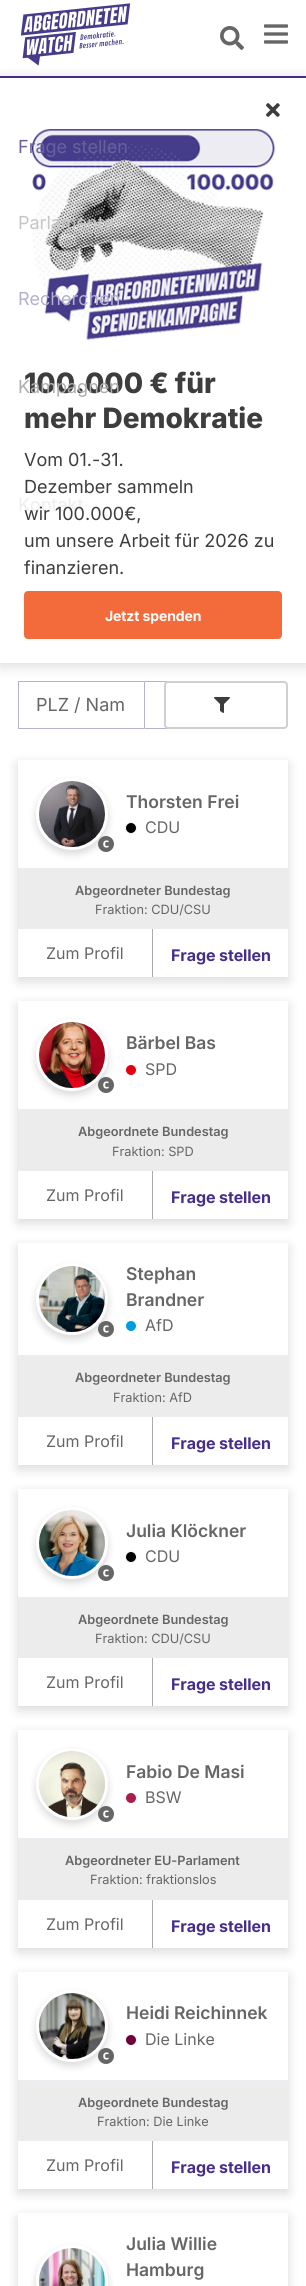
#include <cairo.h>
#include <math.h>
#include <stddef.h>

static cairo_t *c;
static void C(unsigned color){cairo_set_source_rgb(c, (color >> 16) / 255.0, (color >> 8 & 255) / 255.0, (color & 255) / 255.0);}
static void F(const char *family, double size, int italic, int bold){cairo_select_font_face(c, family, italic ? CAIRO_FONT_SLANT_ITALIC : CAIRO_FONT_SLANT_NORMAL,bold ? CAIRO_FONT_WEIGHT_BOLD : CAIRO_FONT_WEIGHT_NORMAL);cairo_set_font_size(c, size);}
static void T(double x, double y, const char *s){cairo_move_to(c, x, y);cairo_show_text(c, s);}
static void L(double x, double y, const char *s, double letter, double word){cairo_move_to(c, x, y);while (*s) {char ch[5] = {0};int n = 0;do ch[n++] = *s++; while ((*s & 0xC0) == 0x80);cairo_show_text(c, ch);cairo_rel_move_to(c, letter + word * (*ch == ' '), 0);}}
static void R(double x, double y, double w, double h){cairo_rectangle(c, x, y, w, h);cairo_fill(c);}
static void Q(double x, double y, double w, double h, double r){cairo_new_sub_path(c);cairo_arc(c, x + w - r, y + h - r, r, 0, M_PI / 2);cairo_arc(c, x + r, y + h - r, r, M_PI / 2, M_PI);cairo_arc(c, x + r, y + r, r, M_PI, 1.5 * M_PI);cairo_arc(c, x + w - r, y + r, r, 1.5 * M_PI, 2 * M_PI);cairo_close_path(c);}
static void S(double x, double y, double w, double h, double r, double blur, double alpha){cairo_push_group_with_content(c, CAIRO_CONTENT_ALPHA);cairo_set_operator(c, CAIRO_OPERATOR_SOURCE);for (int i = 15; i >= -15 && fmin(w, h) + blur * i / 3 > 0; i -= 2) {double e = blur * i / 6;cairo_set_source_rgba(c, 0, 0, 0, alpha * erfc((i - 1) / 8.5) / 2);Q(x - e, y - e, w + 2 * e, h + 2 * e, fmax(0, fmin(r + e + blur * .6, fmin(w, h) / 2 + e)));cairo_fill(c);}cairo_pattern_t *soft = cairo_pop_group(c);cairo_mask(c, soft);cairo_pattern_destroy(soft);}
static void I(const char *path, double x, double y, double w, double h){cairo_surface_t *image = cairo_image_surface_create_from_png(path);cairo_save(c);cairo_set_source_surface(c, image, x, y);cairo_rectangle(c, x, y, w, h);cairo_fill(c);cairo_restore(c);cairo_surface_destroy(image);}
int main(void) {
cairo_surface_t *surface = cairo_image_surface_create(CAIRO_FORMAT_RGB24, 306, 2286);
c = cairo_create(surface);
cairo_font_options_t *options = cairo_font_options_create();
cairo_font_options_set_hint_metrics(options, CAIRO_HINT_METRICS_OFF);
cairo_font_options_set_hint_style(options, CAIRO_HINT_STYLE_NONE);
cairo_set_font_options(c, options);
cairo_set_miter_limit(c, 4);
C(0xffffff);
cairo_paint(c);
C(0xb5b1d0);
R(18,681,126,1);
R(18,728,126,1);
R(18,681,1,48);
Q(144.5,681.5,65,47,.5);
cairo_set_line_width(c,1);
cairo_stroke(c);
C(0xffffff);
Q(165,682,122,46,3);
cairo_fill_preserve(c);
C(0xd1d0cf);
cairo_set_line_width(c,2);
cairo_stroke(c);
C(0x000000);
S(0,80,306,585,0,8,.16);
C(0x462d8a);
R(0,76,306,2);
I("1.png",20,3,111,63);
I("2.png",220,26,24,24);
I("3.png",264,24,24,20);
C(0xffffff);
R(0,78,306,585);
I("5.png",31,129,245,212);
F("Inter",18,0,0);
C(0x68619f);
T(18,153,"Frage stellen");
C(0xc6c6c6);
T(18,229,"Parlamente");
C(0xb4b0cf);
T(18,305,"Recherchen");
F("Inter ExtraBold",28,0,0);
C(0x3d3d3d);
T(24,393,"100.000 € für");
F("Inter",18,0,0);
C(0xaeaeae);
T(18,393,"Kampagnen");
C(0xeeeeee);
T(18,511,"Kontakt");
I("4.png",266,103,14,14);
F("Inter ExtraBold",28,0,0);
C(0x3d3d3d);
T(24,428,"mehr Demokratie");
F("Inter",18,0,0);
T(24,466,"Vom 01.-31.");
T(24,493,"Dezember sammeln");
T(24,520,"wir 100.000€,");
T(24,547,"um unsere Arbeit für 2026 zu");
T(24,574,"finanzieren.");
C(0xf46b3b);
Q(25,592,256,46,3);
cairo_fill_preserve(c);
cairo_stroke(c);
F("Inter",14,0,1);
C(0xffffff);
L(105,621,"Jetzt spenden",-.1,0);
F("Inter",18,0,0);
C(0x666666);
T(36,711,"PLZ / Nam");
I("6.png",214,697,16,16);
cairo_save(c);
cairo_set_fill_rule(c,CAIRO_FILL_RULE_EVEN_ODD);
cairo_new_path(c);
cairo_move_to(c,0,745);
cairo_line_to(c,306,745);
cairo_line_to(c,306,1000);
cairo_line_to(c,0,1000);
cairo_close_path(c);
cairo_move_to(c,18,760);
cairo_line_to(c,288,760);
cairo_line_to(c,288,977);
cairo_line_to(c,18,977);
cairo_close_path(c);
cairo_clip(c);
C(0x000000);
S(18,764,270,217,0,6,.15);
cairo_restore(c);
C(0x000000);
S(36,782,72,72,36,4,.15);
cairo_arc(c,72,814,34.5,0,2 * M_PI);
C(0xffffff);
cairo_set_line_width(c,3);
cairo_stroke(c);
I("7.png",39,781,66,66);
I("8.png",98,836,16,16);
F("Inter SemiBold",17.5,0,0);
C(0x666666);
T(126,808,"Thorsten Frei");
C(0x000000);
cairo_new_path(c);
cairo_arc(c,131,828,5.5,0,2 * M_PI);
cairo_fill_preserve(c);
C(0xffffff);
cairo_set_line_width(c,1);
cairo_stroke(c);
F("Inter",16,0,0);
C(0x666666);
T(145,833,"CDU");
C(0xececec);
R(18,869,270,60);
C(0xedecf3);
R(18,868,270,1);
F("Inter SemiBold",12.75,0,0);
C(0x666666);
T(75,895,"Abgeordneter Bundestag");
F("Inter",12.75,0,0);
T(95,914,"Fraktion: CDU/CSU");
C(0xaaaaaa);
R(152,929,1,48);
F("Inter",16,0,0);
C(0x666666);
T(46,959,"Zum Profil");
F("Inter",16,0,1);
C(0x462d8a);
L(171,961,"Frage stellen",-.1,0);
cairo_save(c);
cairo_set_fill_rule(c,CAIRO_FILL_RULE_EVEN_ODD);
cairo_new_path(c);
cairo_move_to(c,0,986);
cairo_line_to(c,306,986);
cairo_line_to(c,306,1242);
cairo_line_to(c,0,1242);
cairo_close_path(c);
cairo_move_to(c,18,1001);
cairo_line_to(c,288,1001);
cairo_line_to(c,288,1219);
cairo_line_to(c,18,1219);
cairo_close_path(c);
cairo_clip(c);
C(0x000000);
S(18,1005,270,218,0,6,.15);
cairo_restore(c);
C(0x000000);
S(36,1023,72,72,36,4,.15);
cairo_arc(c,72,1055,34.5,0,2 * M_PI);
C(0xffffff);
cairo_set_line_width(c,3);
cairo_stroke(c);
I("9.png",39,1022,66,66);
I("8.png",98,1077,16,16);
F("Inter SemiBold",17.5,0,0);
C(0x666666);
T(126,1049,"Bärbel Bas");
C(0xe3000f);
cairo_new_path(c);
cairo_arc(c,131,1070,5.5,0,2 * M_PI);
cairo_fill_preserve(c);
C(0xffffff);
cairo_set_line_width(c,1);
cairo_stroke(c);
F("Inter",16,0,0);
C(0x666666);
T(145,1075,"SPD");
C(0xececec);
R(18,1110,270,61);
C(0xedecf3);
R(18,1109,270,1);
F("Inter SemiBold",12.75,0,0);
C(0x666666);
T(78,1136,"Abgeordnete Bundestag");
F("Inter",12.75,0,0);
T(112,1156,"Fraktion: SPD");
C(0xaaaaaa);
R(152,1171,1,48);
F("Inter",16,0,0);
C(0x666666);
T(46,1201,"Zum Profil");
F("Inter",16,0,1);
C(0x462d8a);
L(171,1203,"Frage stellen",-.1,0);
cairo_save(c);
cairo_set_fill_rule(c,CAIRO_FILL_RULE_EVEN_ODD);
cairo_new_path(c);
cairo_move_to(c,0,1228);
cairo_line_to(c,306,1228);
cairo_line_to(c,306,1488);
cairo_line_to(c,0,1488);
cairo_close_path(c);
cairo_move_to(c,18,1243);
cairo_line_to(c,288,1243);
cairo_line_to(c,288,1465);
cairo_line_to(c,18,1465);
cairo_close_path(c);
cairo_clip(c);
C(0x000000);
S(18,1247,270,222,0,6,.15);
cairo_restore(c);
C(0x000000);
S(36,1267,72,72,36,4,.15);
cairo_arc(c,72,1299,34.5,0,2 * M_PI);
C(0xffffff);
cairo_set_line_width(c,3);
cairo_stroke(c);
I("10.png",39,1266,66,66);
I("8.png",98,1321,16,16);
F("Inter SemiBold",17.5,0,0);
C(0x666666);
T(126,1280,"Stephan");
T(126,1306,"Brandner");
C(0x009ee0);
cairo_new_path(c);
cairo_arc(c,131,1326,5.5,0,2 * M_PI);
cairo_fill_preserve(c);
C(0xffffff);
cairo_set_line_width(c,1);
cairo_stroke(c);
F("Inter",16,0,0);
C(0x666666);
T(145,1331,"AfD");
C(0xececec);
R(18,1356,270,61);
C(0xedecf3);
R(18,1355,270,1);
F("Inter SemiBold",12.75,0,0);
C(0x666666);
T(75,1382,"Abgeordneter Bundestag");
F("Inter",12.75,0,0);
T(113,1402,"Fraktion: AfD");
C(0xaaaaaa);
R(152,1417,1,48);
F("Inter",16,0,0);
C(0x666666);
T(46,1447,"Zum Profil");
F("Inter",16,0,1);
C(0x462d8a);
L(171,1449,"Frage stellen",-.1,0);
cairo_save(c);
cairo_set_fill_rule(c,CAIRO_FILL_RULE_EVEN_ODD);
cairo_new_path(c);
cairo_move_to(c,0,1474);
cairo_line_to(c,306,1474);
cairo_line_to(c,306,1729);
cairo_line_to(c,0,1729);
cairo_close_path(c);
cairo_move_to(c,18,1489);
cairo_line_to(c,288,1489);
cairo_line_to(c,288,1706);
cairo_line_to(c,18,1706);
cairo_close_path(c);
cairo_clip(c);
C(0x000000);
S(18,1493,270,217,0,6,.15);
cairo_restore(c);
C(0x000000);
S(36,1511,72,72,36,4,.15);
cairo_arc(c,72,1543,34.5,0,2 * M_PI);
C(0xffffff);
cairo_set_line_width(c,3);
cairo_stroke(c);
I("11.png",39,1510,66,66);
I("8.png",98,1565,16,16);
F("Inter SemiBold",17.5,0,0);
C(0x666666);
T(126,1537,"Julia Klöckner");
C(0x000000);
cairo_new_path(c);
cairo_arc(c,131,1557,5.5,0,2 * M_PI);
cairo_fill_preserve(c);
C(0xffffff);
cairo_set_line_width(c,1);
cairo_stroke(c);
F("Inter",16,0,0);
C(0x666666);
T(145,1562,"CDU");
C(0xececec);
R(18,1598,270,60);
C(0xedecf3);
R(18,1597,270,1);
F("Inter SemiBold",12.75,0,0);
C(0x666666);
T(78,1624,"Abgeordnete Bundestag");
F("Inter",12.75,0,0);
T(95,1643,"Fraktion: CDU/CSU");
C(0xaaaaaa);
R(152,1658,1,48);
F("Inter",16,0,0);
C(0x666666);
T(46,1688,"Zum Profil");
F("Inter",16,0,1);
C(0x462d8a);
L(171,1690,"Frage stellen",-.1,0);
cairo_save(c);
cairo_set_fill_rule(c,CAIRO_FILL_RULE_EVEN_ODD);
cairo_new_path(c);
cairo_move_to(c,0,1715);
cairo_line_to(c,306,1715);
cairo_line_to(c,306,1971);
cairo_line_to(c,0,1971);
cairo_close_path(c);
cairo_move_to(c,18,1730);
cairo_line_to(c,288,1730);
cairo_line_to(c,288,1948);
cairo_line_to(c,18,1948);
cairo_close_path(c);
cairo_clip(c);
C(0x000000);
S(18,1734,270,218,0,6,.15);
cairo_restore(c);
C(0x000000);
S(36,1752,72,72,36,4,.15);
cairo_arc(c,72,1784,34.5,0,2 * M_PI);
C(0xffffff);
cairo_set_line_width(c,3);
cairo_stroke(c);
I("12.png",39,1751,66,66);
I("8.png",98,1806,16,16);
F("Inter SemiBold",17.5,0,0);
C(0x666666);
T(126,1778,"Fabio De Masi");
C(0xa91e4a);
cairo_new_path(c);
cairo_arc(c,131,1798,5.5,0,2 * M_PI);
cairo_fill_preserve(c);
C(0xffffff);
cairo_set_line_width(c,1);
cairo_stroke(c);
F("Inter",16,0,0);
C(0x666666);
T(145,1803,"BSW");
C(0xececec);
R(18,1839,270,61);
C(0xedecf3);
R(18,1838,270,1);
F("Inter SemiBold",12.75,0,0);
C(0x666666);
T(65,1865,"Abgeordneter EU-Parlament");
F("Inter",12.75,0,0);
T(90,1884,"Fraktion: fraktionslos");
C(0xaaaaaa);
R(152,1900,1,48);
F("Inter",16,0,0);
C(0x666666);
T(46,1930,"Zum Profil");
F("Inter",16,0,1);
C(0x462d8a);
L(171,1932,"Frage stellen",-.1,0);
cairo_save(c);
cairo_set_fill_rule(c,CAIRO_FILL_RULE_EVEN_ODD);
cairo_new_path(c);
cairo_move_to(c,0,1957);
cairo_line_to(c,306,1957);
cairo_line_to(c,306,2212);
cairo_line_to(c,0,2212);
cairo_close_path(c);
cairo_move_to(c,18,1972);
cairo_line_to(c,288,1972);
cairo_line_to(c,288,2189);
cairo_line_to(c,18,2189);
cairo_close_path(c);
cairo_clip(c);
C(0x000000);
S(18,1976,270,217,0,6,.15);
cairo_restore(c);
C(0x000000);
S(36,1994,72,72,36,4,.15);
cairo_arc(c,72,2026,34.5,0,2 * M_PI);
C(0xffffff);
cairo_set_line_width(c,3);
cairo_stroke(c);
I("13.png",39,1993,66,66);
I("8.png",98,2048,16,16);
F("Inter SemiBold",17.5,0,0);
C(0x666666);
T(126,2019,"Heidi Reichinnek");
C(0x6f003c);
cairo_new_path(c);
cairo_arc(c,131,2040,5.5,0,2 * M_PI);
cairo_fill_preserve(c);
C(0xffffff);
cairo_set_line_width(c,1);
cairo_stroke(c);
F("Inter",16,0,0);
C(0x666666);
T(145,2045,"Die Linke");
C(0xececec);
R(18,2081,270,60);
C(0xedecf3);
R(18,2080,270,1);
F("Inter SemiBold",12.75,0,0);
C(0x666666);
T(78,2107,"Abgeordnete Bundestag");
F("Inter",12.75,0,0);
T(97,2126,"Fraktion: Die Linke");
C(0xaaaaaa);
R(152,2141,1,48);
F("Inter",16,0,0);
C(0x666666);
T(46,2171,"Zum Profil");
F("Inter",16,0,1);
C(0x462d8a);
L(171,2173,"Frage stellen",-.1,0);
cairo_save(c);
cairo_set_fill_rule(c,CAIRO_FILL_RULE_EVEN_ODD);
cairo_new_path(c);
cairo_move_to(c,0,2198);
cairo_line_to(c,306,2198);
cairo_line_to(c,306,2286);
cairo_line_to(c,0,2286);
cairo_close_path(c);
cairo_move_to(c,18,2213);
cairo_line_to(c,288,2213);
cairo_line_to(c,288,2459);
cairo_line_to(c,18,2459);
cairo_close_path(c);
cairo_clip(c);
C(0x000000);
S(18,2217,270,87,0,6,.15);
cairo_restore(c);
C(0x000000);
S(36,2249,72,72,36,4,.15);
cairo_arc(c,72,2281,34.5,0,2 * M_PI);
C(0xffffff);
cairo_set_line_width(c,3);
cairo_stroke(c);
I("14.png",39,2248,66,38);
F("Inter SemiBold",17.5,0,0);
C(0x666666);
T(126,2250,"Julia Willie");
T(126,2276,"Hamburg");
cairo_surface_write_to_png(surface, "o.png");
cairo_font_options_destroy(options);
cairo_destroy(c);
cairo_surface_destroy(surface);
return 0;
}
